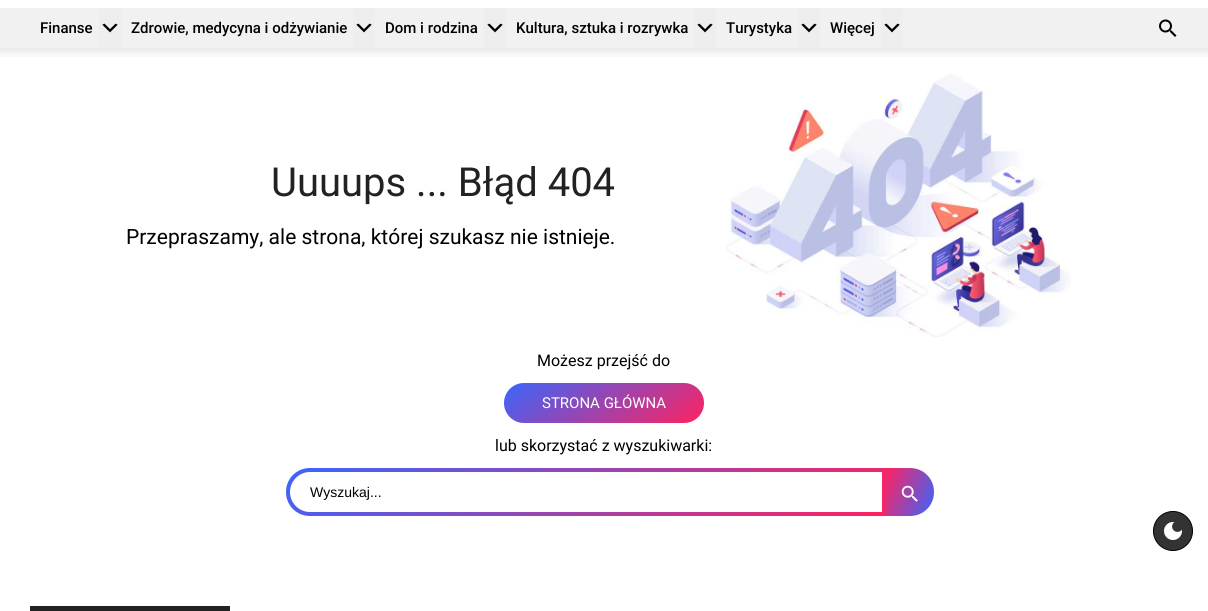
#include <cairo.h>
#include <math.h>
#include <stddef.h>

static cairo_t *c;
static void C(unsigned color){cairo_set_source_rgb(c, (color >> 16) / 255.0, (color >> 8 & 255) / 255.0, (color & 255) / 255.0);}
static void F(const char *family, double size, int italic, int bold){cairo_select_font_face(c, family, italic ? CAIRO_FONT_SLANT_ITALIC : CAIRO_FONT_SLANT_NORMAL,bold ? CAIRO_FONT_WEIGHT_BOLD : CAIRO_FONT_WEIGHT_NORMAL);cairo_set_font_size(c, size);}
static void T(double x, double y, const char *s){cairo_move_to(c, x, y);cairo_show_text(c, s);}
static void R(double x, double y, double w, double h){cairo_rectangle(c, x, y, w, h);cairo_fill(c);}
static void Q(double x, double y, double w, double h, double r){cairo_new_sub_path(c);cairo_arc(c, x + w - r, y + h - r, r, 0, M_PI / 2);cairo_arc(c, x + r, y + h - r, r, M_PI / 2, M_PI);cairo_arc(c, x + r, y + r, r, M_PI, 1.5 * M_PI);cairo_arc(c, x + w - r, y + r, r, 1.5 * M_PI, 2 * M_PI);cairo_close_path(c);}
static void I(const char *path, double x, double y, double w, double h){cairo_surface_t *image = cairo_image_surface_create_from_png(path);cairo_save(c);cairo_set_source_surface(c, image, x, y);cairo_rectangle(c, x, y, w, h);cairo_fill(c);cairo_restore(c);cairo_surface_destroy(image);}
int main(void) {
cairo_surface_t *surface = cairo_image_surface_create(CAIRO_FORMAT_RGB24, 1208, 611);
c = cairo_create(surface);
cairo_font_options_t *options = cairo_font_options_create();
cairo_font_options_set_hint_metrics(options, CAIRO_HINT_METRICS_OFF);
cairo_font_options_set_hint_style(options, CAIRO_HINT_STYLE_NONE);
cairo_set_font_options(c, options);
cairo_set_miter_limit(c, 4);
cairo_pattern_t *gradient;
C(0xffffff);
cairo_paint(c);
C(0xf1f1f1);
R(0,8,1208,40);
F("Roboto Medium",15,0,0);
C(0x000000);
T(40,33,"Finanse");
C(0xeeeeee);
R(99,8,22,40);
I("1.png",102,23,16,10);
C(0x000000);
T(131,33,"Zdrowie, medycyna i odżywianie");
C(0xeeeeee);
R(353,8,22,40);
I("1.png",356,23,16,10);
C(0x000000);
T(385,33,"Dom i rodzina");
C(0xeeeeee);
R(484,8,22,40);
I("1.png",487,23,16,10);
C(0x000000);
T(516,33,"Kultura, sztuka i rozrywka");
C(0xeeeeee);
R(694,8,22,40);
I("1.png",697,23,16,10);
C(0x000000);
T(726,33,"Turystyka");
C(0xeeeeee);
R(798,8,22,40);
I("1.png",801,23,16,10);
C(0x000000);
T(830,33,"Więcej");
C(0xeeeeee);
R(881,8,22,40);
I("1.png",884,23,16,10);
I("2.png",1159,19,18,18);
I("3.png",0,48,1208,9);
F("Roboto",40,0,0);
C(0x222222);
T(271,196,"Uuuups ... Błąd 404");
I("4.png",726,73,345,264);
F("Roboto",21,0,0);
C(0x000000);
T(126,244,"Przepraszamy, ale strona, której szukasz nie istnieje.");
F("Roboto",16,0,0);
T(537,366,"Możesz przejść do");
gradient = cairo_pattern_create_linear(560,342,648,464);
cairo_pattern_add_color_stop_rgba(gradient,0,0.224,0.4,0.992,1);
cairo_pattern_add_color_stop_rgba(gradient,1,1,0.133,0.373,1);
cairo_set_source(c,gradient);
cairo_pattern_destroy(gradient);
Q(504,383,200,40,20);
cairo_fill(c);
F("Roboto",15,0,0);
C(0xffffff);
T(542,408,"STRONA GŁÓWNA");
F("Roboto",16,0,0);
C(0x000000);
T(495,451,"lub skorzystać z wyszukiwarki:");
gradient = cairo_pattern_create_linear(471,334,701,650);
cairo_pattern_add_color_stop_rgba(gradient,0,0.224,0.4,0.992,1);
cairo_pattern_add_color_stop_rgba(gradient,1,1,0.133,0.373,1);
cairo_set_source(c,gradient);
cairo_pattern_destroy(gradient);
cairo_new_path(c);
cairo_move_to(c,310,468);
cairo_line_to(c,886,468);
cairo_line_to(c,886,516);
cairo_line_to(c,310,516);
cairo_curve_to(c,296.5,516,286,505.5,286,492);
cairo_curve_to(c,286,478.5,296.5,468,310,468);
cairo_close_path(c);
cairo_fill(c);
C(0xffffff);
cairo_new_path(c);
cairo_move_to(c,310,472);
cairo_line_to(c,882,472);
cairo_line_to(c,882,512);
cairo_line_to(c,310,512);
cairo_curve_to(c,299,512,290,503,290,492);
cairo_curve_to(c,290,481,299,472,310,472);
cairo_close_path(c);
cairo_fill(c);
F("Liberation Sans",14,0,0);
C(0x000000);
T(310,497,"Wyszukaj...");
gradient = cairo_pattern_create_linear(939,504,881,480);
cairo_pattern_add_color_stop_rgba(gradient,0,0.224,0.4,0.992,1);
cairo_pattern_add_color_stop_rgba(gradient,1,1,0.133,0.373,1);
cairo_set_source(c,gradient);
cairo_pattern_destroy(gradient);
cairo_new_path(c);
cairo_move_to(c,886,468);
cairo_line_to(c,910,468);
cairo_curve_to(c,923.5,468,934,478.5,934,492);
cairo_curve_to(c,934,505.5,923.5,516,910,516);
cairo_line_to(c,886,516);
cairo_close_path(c);
cairo_fill(c);
I("5.png",901,485,17,17);
C(0x222222);
R(30,606,200,5);
C(0x333333);
cairo_arc(c,1173,531,19.5,0,2 * M_PI);
cairo_fill_preserve(c);
C(0x000000);
cairo_set_line_width(c,1);
cairo_stroke(c);
I("6.png",1164,522,18,18);
cairo_surface_write_to_png(surface, "o.png");
cairo_font_options_destroy(options);
cairo_destroy(c);
cairo_surface_destroy(surface);
return 0;
}
